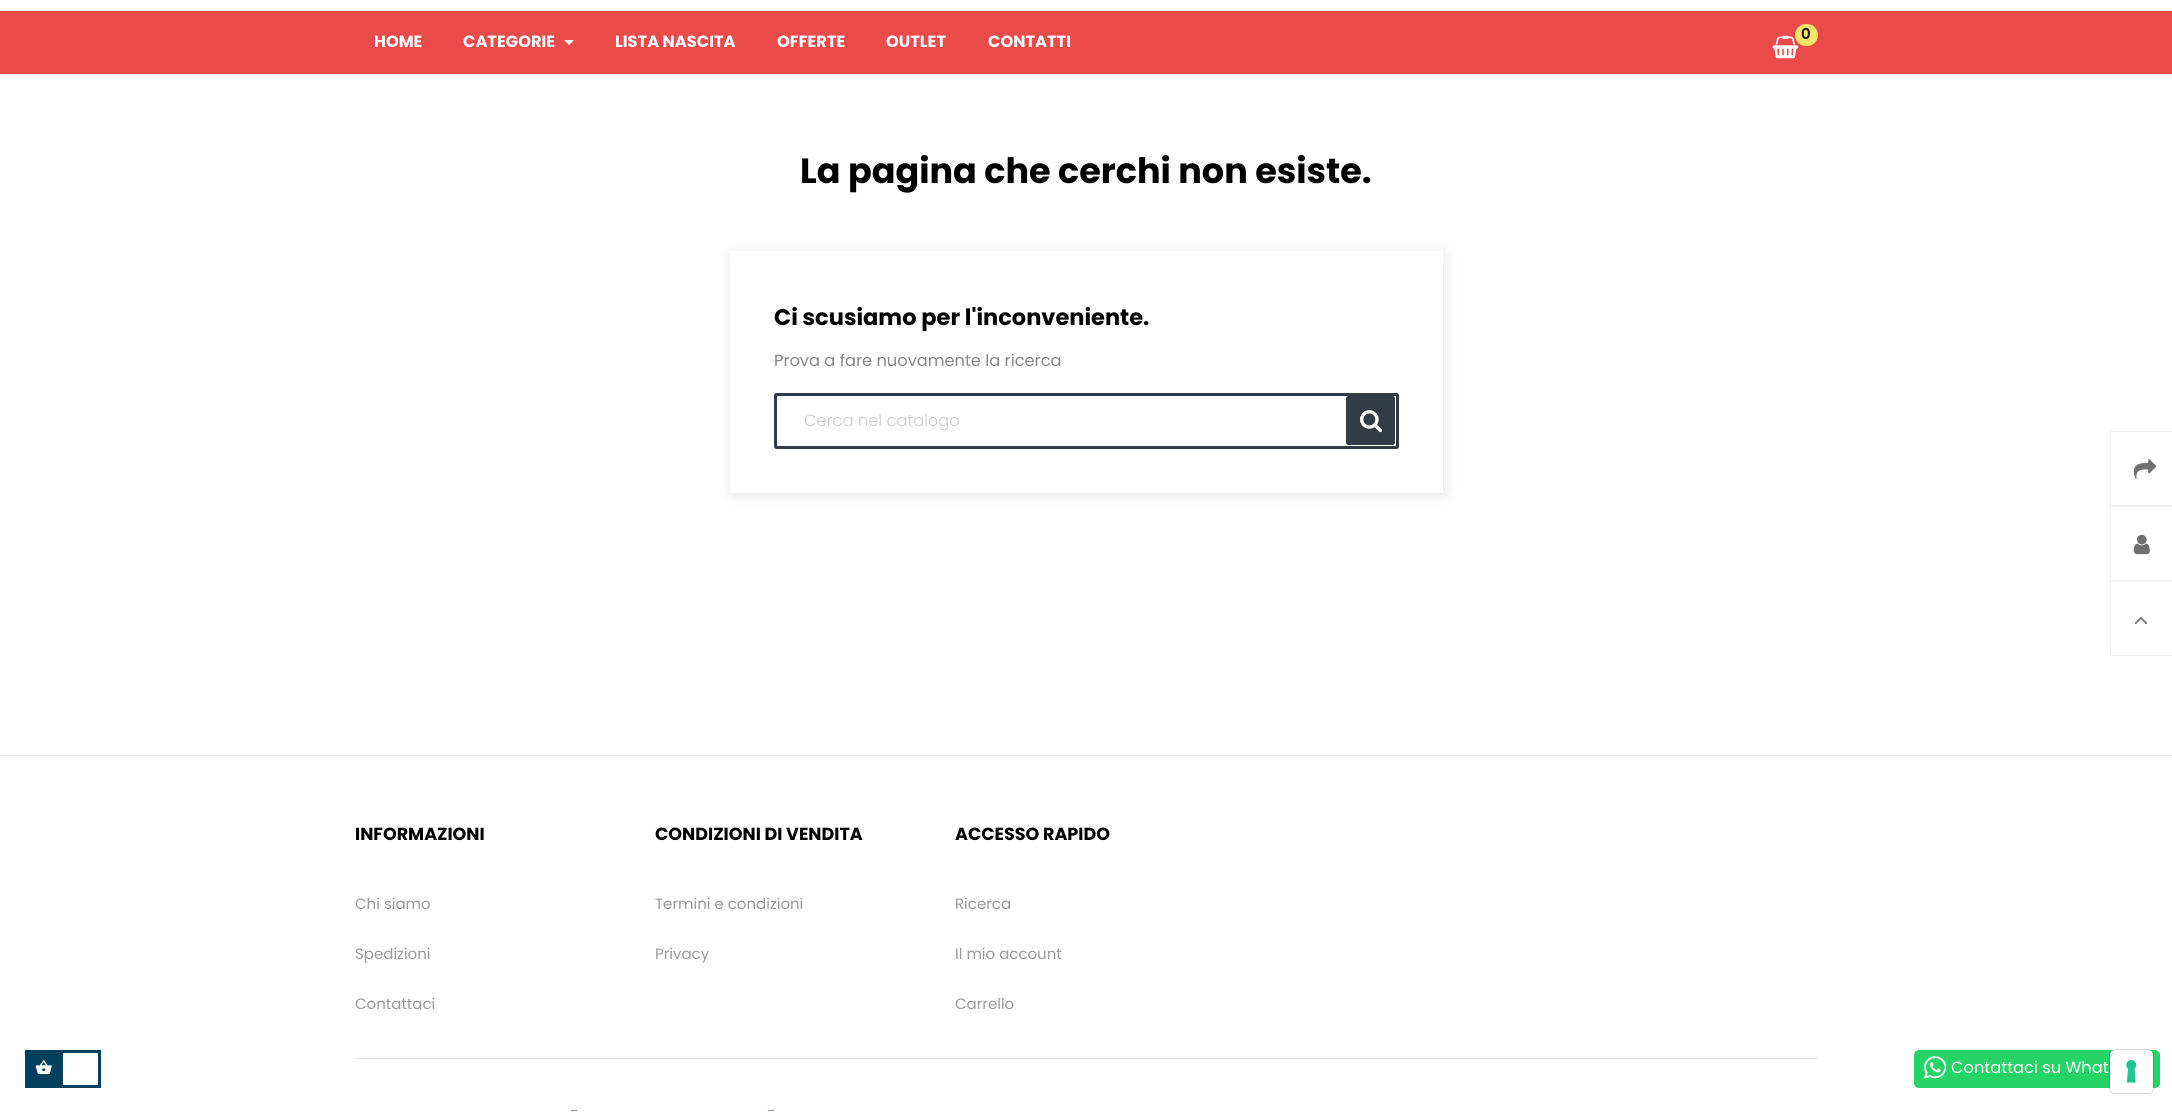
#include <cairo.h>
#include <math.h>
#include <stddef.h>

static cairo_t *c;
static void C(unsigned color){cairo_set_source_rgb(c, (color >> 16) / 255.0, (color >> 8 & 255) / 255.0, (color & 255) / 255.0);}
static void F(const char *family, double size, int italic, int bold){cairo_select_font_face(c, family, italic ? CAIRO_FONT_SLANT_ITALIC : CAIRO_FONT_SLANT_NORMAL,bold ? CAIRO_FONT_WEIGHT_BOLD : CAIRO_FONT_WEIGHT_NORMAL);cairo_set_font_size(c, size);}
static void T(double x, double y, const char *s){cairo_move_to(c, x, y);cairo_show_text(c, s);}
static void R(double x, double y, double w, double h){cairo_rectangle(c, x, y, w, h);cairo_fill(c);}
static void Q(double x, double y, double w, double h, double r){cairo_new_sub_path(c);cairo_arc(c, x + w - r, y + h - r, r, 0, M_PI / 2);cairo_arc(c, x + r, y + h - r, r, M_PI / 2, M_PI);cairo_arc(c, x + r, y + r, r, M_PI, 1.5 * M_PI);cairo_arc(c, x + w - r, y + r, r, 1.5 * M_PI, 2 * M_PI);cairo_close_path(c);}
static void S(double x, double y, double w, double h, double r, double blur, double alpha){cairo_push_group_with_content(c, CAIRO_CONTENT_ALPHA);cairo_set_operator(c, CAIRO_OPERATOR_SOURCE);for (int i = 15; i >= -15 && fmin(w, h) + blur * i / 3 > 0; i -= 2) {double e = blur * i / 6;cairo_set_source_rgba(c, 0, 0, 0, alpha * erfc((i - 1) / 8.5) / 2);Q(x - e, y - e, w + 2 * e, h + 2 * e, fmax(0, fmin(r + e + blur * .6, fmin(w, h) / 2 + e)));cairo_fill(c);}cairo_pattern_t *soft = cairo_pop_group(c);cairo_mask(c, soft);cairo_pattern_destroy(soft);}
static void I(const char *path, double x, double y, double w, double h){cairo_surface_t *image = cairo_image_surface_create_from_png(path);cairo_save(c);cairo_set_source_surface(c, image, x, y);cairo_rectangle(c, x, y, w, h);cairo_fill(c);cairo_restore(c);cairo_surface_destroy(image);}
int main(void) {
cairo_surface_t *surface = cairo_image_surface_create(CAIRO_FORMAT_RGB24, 2172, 1112);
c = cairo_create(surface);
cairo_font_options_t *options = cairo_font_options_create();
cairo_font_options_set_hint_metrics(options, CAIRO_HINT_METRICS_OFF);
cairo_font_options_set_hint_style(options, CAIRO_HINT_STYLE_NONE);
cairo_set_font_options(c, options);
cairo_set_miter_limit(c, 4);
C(0xffffff);
cairo_paint(c);
C(0x01405d);
R(25,1050,76,38);
I("1.png",35,1060,17,15);
C(0xffffff);
R(63,1053,35,32);
C(0xf8f8f8);
R(0,74,2172,3);
C(0xe94a4a);
R(0,11,2172,63);
I("2.png",1772,35,27,24);
C(0xf8e565);
Q(1795,24,23,22,11);
cairo_fill(c);
F("Poppins SemiBold",15,0,0);
C(0x191919);
T(1801,39,"0");
F("Poppins",16.25,0,1);
C(0xffffff);
T(374,47,"HOME");
T(463,47,"CATEGORIE");
cairo_new_path(c);
cairo_move_to(c,564,40);
cairo_line_to(c,574,40);
cairo_line_to(c,569,45);
cairo_close_path(c);
cairo_fill(c);
T(615,47,"LISTA NASCITA");
T(777,47,"OFFERTE");
T(886,47,"OUTLET");
T(988,47,"CONTATTI");
cairo_rectangle(c,2110.5,431.5,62,74);
C(0xf1f1f1);
cairo_set_line_width(c,1);
cairo_stroke(c);
I("3.png",2133,459,24,20);
cairo_rectangle(c,2110.5,506.5,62,74);
cairo_stroke(c);
I("4.png",2133,534,17,21);
cairo_rectangle(c,2110.5,581.5,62,74);
cairo_stroke(c);
I("5.png",2134,616,14,9);
F("Poppins",35,0,1);
C(0x000000);
T(800,183,"La pagina che cerchi non esiste.");
C(0x000000);
S(733,254,712,241,0,7,.1);
C(0xffffff);
R(730,251,713,242);
F("Poppins",22.5,0,1);
C(0x000000);
T(774,325,"Ci scusiamo per l'inconveniente.");
F("Poppins",16.25,0,0);
C(0x878787);
T(774,366,"Prova a fare nuovamente la ricerca");
Q(775.5,394.5,622,53,1);
C(0x333b48);
cairo_set_line_width(c,3);
cairo_stroke(c);
F("Poppins Light",16.25,0,0);
C(0xcccccc);
T(804,426,"Cerca nel catalogo");
C(0x333b48);
Q(1346,396,49,49,2.5);
cairo_fill(c);
I("6.png",1360,410,22,23);
C(0xe8e8e8);
R(0,755,2172,1);
F("Poppins",17.5,0,1);
C(0x000000);
T(355,840,"INFORMAZIONI");
F("Poppins",15,0,0);
C(0x999999);
T(355,909,"Chi siamo");
T(355,959,"Spedizioni");
T(355,1009,"Contattaci");
F("Poppins",17.5,0,1);
C(0x000000);
T(655,840,"CONDIZIONI DI VENDITA");
F("Poppins",15,0,0);
C(0x999999);
T(655,909,"Termini e condizioni");
T(655,959,"Privacy");
F("Poppins",17.5,0,1);
C(0x000000);
T(955,840,"ACCESSO RAPIDO");
F("Poppins",15,0,0);
C(0x999999);
T(955,909,"Ricerca");
T(955,959,"Il mio account");
T(955,1009,"Carrello");
C(0xe8e8e8);
R(355,1058,1463,1);
C(0x999999);
T(570,1116,"-");
T(767,1116,"-");
C(0x25d366);
Q(1914,1050,246,38,5);
cairo_fill(c);
I("7.png",1923,1056,24,23);
F("Poppins",16.25,0,0);
C(0xffffff);
T(1951,1073,"Contattaci su What");
Q(2109.5,1049.5,44,44,5.5);
cairo_set_source_rgba(c,0,0,0,0.15);
cairo_set_line_width(c,1);
cairo_stroke(c);
C(0xffffff);
Q(2110,1050,43,43,5);
cairo_fill(c);
I("8.png",2126,1060,11,23);
cairo_surface_write_to_png(surface, "o.png");
cairo_font_options_destroy(options);
cairo_destroy(c);
cairo_surface_destroy(surface);
return 0;
}
